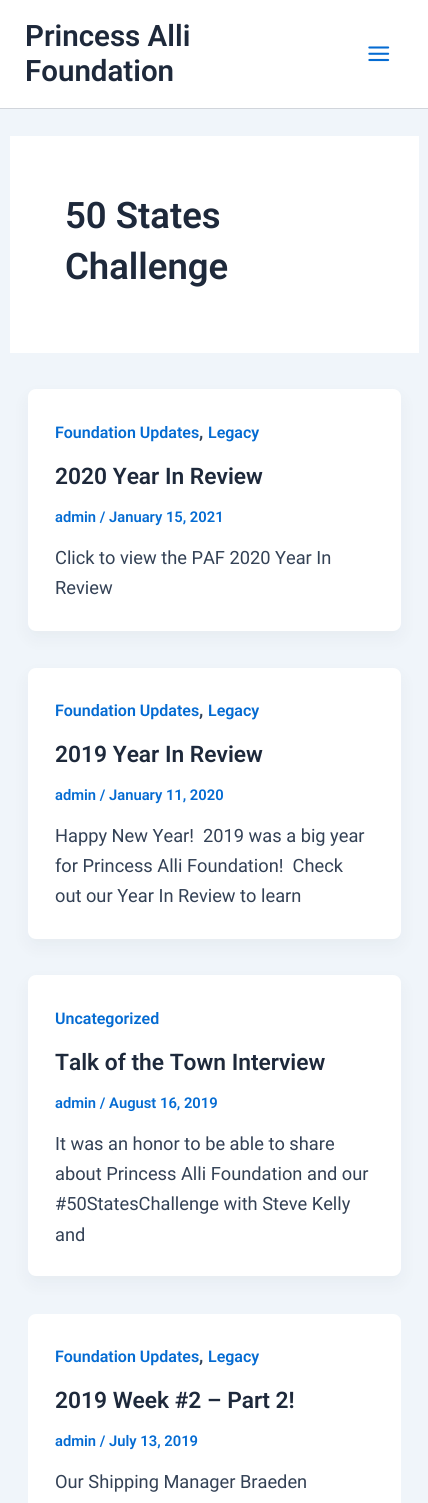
#include <cairo.h>
#include <math.h>
#include <stddef.h>

static cairo_t *c;
static void C(unsigned color){cairo_set_source_rgb(c, (color >> 16) / 255.0, (color >> 8 & 255) / 255.0, (color & 255) / 255.0);}
static void F(const char *family, double size, int italic, int bold){cairo_select_font_face(c, family, italic ? CAIRO_FONT_SLANT_ITALIC : CAIRO_FONT_SLANT_NORMAL,bold ? CAIRO_FONT_WEIGHT_BOLD : CAIRO_FONT_WEIGHT_NORMAL);cairo_set_font_size(c, size);}
static void T(double x, double y, const char *s){cairo_move_to(c, x, y);cairo_show_text(c, s);}
static void R(double x, double y, double w, double h){cairo_rectangle(c, x, y, w, h);cairo_fill(c);}
static void Q(double x, double y, double w, double h, double r){cairo_new_sub_path(c);cairo_arc(c, x + w - r, y + h - r, r, 0, M_PI / 2);cairo_arc(c, x + r, y + h - r, r, M_PI / 2, M_PI);cairo_arc(c, x + r, y + r, r, M_PI, 1.5 * M_PI);cairo_arc(c, x + w - r, y + r, r, 1.5 * M_PI, 2 * M_PI);cairo_close_path(c);}
static void S(double x, double y, double w, double h, double r, double blur, double alpha){cairo_push_group_with_content(c, CAIRO_CONTENT_ALPHA);cairo_set_operator(c, CAIRO_OPERATOR_SOURCE);for (int i = 15; i >= -15 && fmin(w, h) + blur * i / 3 > 0; i -= 2) {double e = blur * i / 6;cairo_set_source_rgba(c, 0, 0, 0, alpha * erfc((i - 1) / 8.5) / 2);Q(x - e, y - e, w + 2 * e, h + 2 * e, fmax(0, fmin(r + e + blur * .6, fmin(w, h) / 2 + e)));cairo_fill(c);}cairo_pattern_t *soft = cairo_pop_group(c);cairo_mask(c, soft);cairo_pattern_destroy(soft);}
static void I(const char *path, double x, double y, double w, double h){cairo_surface_t *image = cairo_image_surface_create_from_png(path);cairo_save(c);cairo_set_source_surface(c, image, x, y);cairo_rectangle(c, x, y, w, h);cairo_fill(c);cairo_restore(c);cairo_surface_destroy(image);}
int main(void) {
cairo_surface_t *surface = cairo_image_surface_create(CAIRO_FORMAT_RGB24, 428, 1503);
c = cairo_create(surface);
cairo_font_options_t *options = cairo_font_options_create();
cairo_font_options_set_hint_metrics(options, CAIRO_HINT_METRICS_OFF);
cairo_font_options_set_hint_style(options, CAIRO_HINT_STYLE_NONE);
cairo_set_font_options(c, options);
cairo_set_miter_limit(c, 4);
C(0xf0f5fa);
cairo_paint(c);
C(0xffffff);
R(0,0,428,108);
C(0xd1d5db);
R(0,108,428,1);
F("Roboto SemiBold",29.5,0,0);
C(0x1e293b);
T(25,46,"Princess Alli");
T(25,81,"Foundation");
I("1.png",368,46,22,16);
C(0xffffff);
R(10,136,409,217);
F("Roboto SemiBold",36.5,0,0);
C(0x1e293b);
T(65,228,"50 States");
T(65,279,"Challenge");
C(0x101828);
S(30,399,369,237,5,9.5,.05);
C(0xffffff);
Q(28,389,373,242,8);
cairo_fill(c);
F("Roboto SemiBold",16,0,0);
C(0x046bd2);
T(55,438,"Foundation Updates");
F("Roboto SemiBold",18.25,0,0);
C(0x334155);
T(199,438,",");
F("Roboto SemiBold",16,0,0);
C(0x046bd2);
T(208,438,"Legacy");
F("Roboto SemiBold",22.75,0,0);
C(0x1e293b);
T(55,484,"2020 Year In Review");
F("Roboto SemiBold",14.75,0,0);
C(0x046bd2);
T(55,522,"admin / January 15, 2021");
F("Roboto",18.25,0,0);
C(0x334155);
T(55,564,"Click to view the PAF 2020 Year In");
T(55,594,"Review");
C(0x101828);
S(30,678,369,266,5,9.5,.05);
C(0xffffff);
Q(28,668,373,271,8);
cairo_fill(c);
F("Roboto SemiBold",16,0,0);
C(0x046bd2);
T(55,716,"Foundation Updates");
F("Roboto SemiBold",18.25,0,0);
C(0x334155);
T(199,716,",");
F("Roboto SemiBold",16,0,0);
C(0x046bd2);
T(208,716,"Legacy");
F("Roboto SemiBold",22.75,0,0);
C(0x1e293b);
T(55,762,"2019 Year In Review");
F("Roboto SemiBold",14.75,0,0);
C(0x046bd2);
T(55,800,"admin / January 11, 2020");
F("Roboto",18.25,0,0);
C(0x334155);
T(55,842,"Happy New Year!  2019 was a big year");
T(55,872,"for Princess Alli Foundation!  Check");
T(55,902,"out our Year In Review to learn");
C(0x101828);
S(30,985,369,296,5,9.5,.05);
C(0xffffff);
Q(28,975,373,301,8);
cairo_fill(c);
F("Roboto SemiBold",16,0,0);
C(0x046bd2);
T(55,1024,"Uncategorized");
F("Roboto SemiBold",22.75,0,0);
C(0x1e293b);
T(55,1070,"Talk of the Town Interview");
F("Roboto SemiBold",14.75,0,0);
C(0x046bd2);
T(55,1108,"admin / August 16, 2019");
F("Roboto",18.25,0,0);
C(0x334155);
T(55,1150,"It was an honor to be able to share");
T(55,1180,"about Princess Alli Foundation and our");
T(55,1210,"#50StatesChallenge with Steve Kelly");
T(55,1241,"and");
C(0xffffff);
Q(28,1314,373,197,8);
cairo_fill(c);
F("Roboto SemiBold",16,0,0);
C(0x046bd2);
T(55,1362,"Foundation Updates");
F("Roboto SemiBold",18.25,0,0);
C(0x334155);
T(199,1362,",");
F("Roboto SemiBold",16,0,0);
C(0x046bd2);
T(208,1362,"Legacy");
F("Roboto SemiBold",22.75,0,0);
C(0x1e293b);
T(55,1408,"2019 Week #2 – Part 2!");
F("Roboto SemiBold",14.75,0,0);
C(0x046bd2);
T(55,1446,"admin / July 13, 2019");
F("Roboto",18.25,0,0);
C(0x334155);
T(55,1488,"Our Shipping Manager Braeden");
cairo_surface_write_to_png(surface, "o.png");
cairo_font_options_destroy(options);
cairo_destroy(c);
cairo_surface_destroy(surface);
return 0;
}
